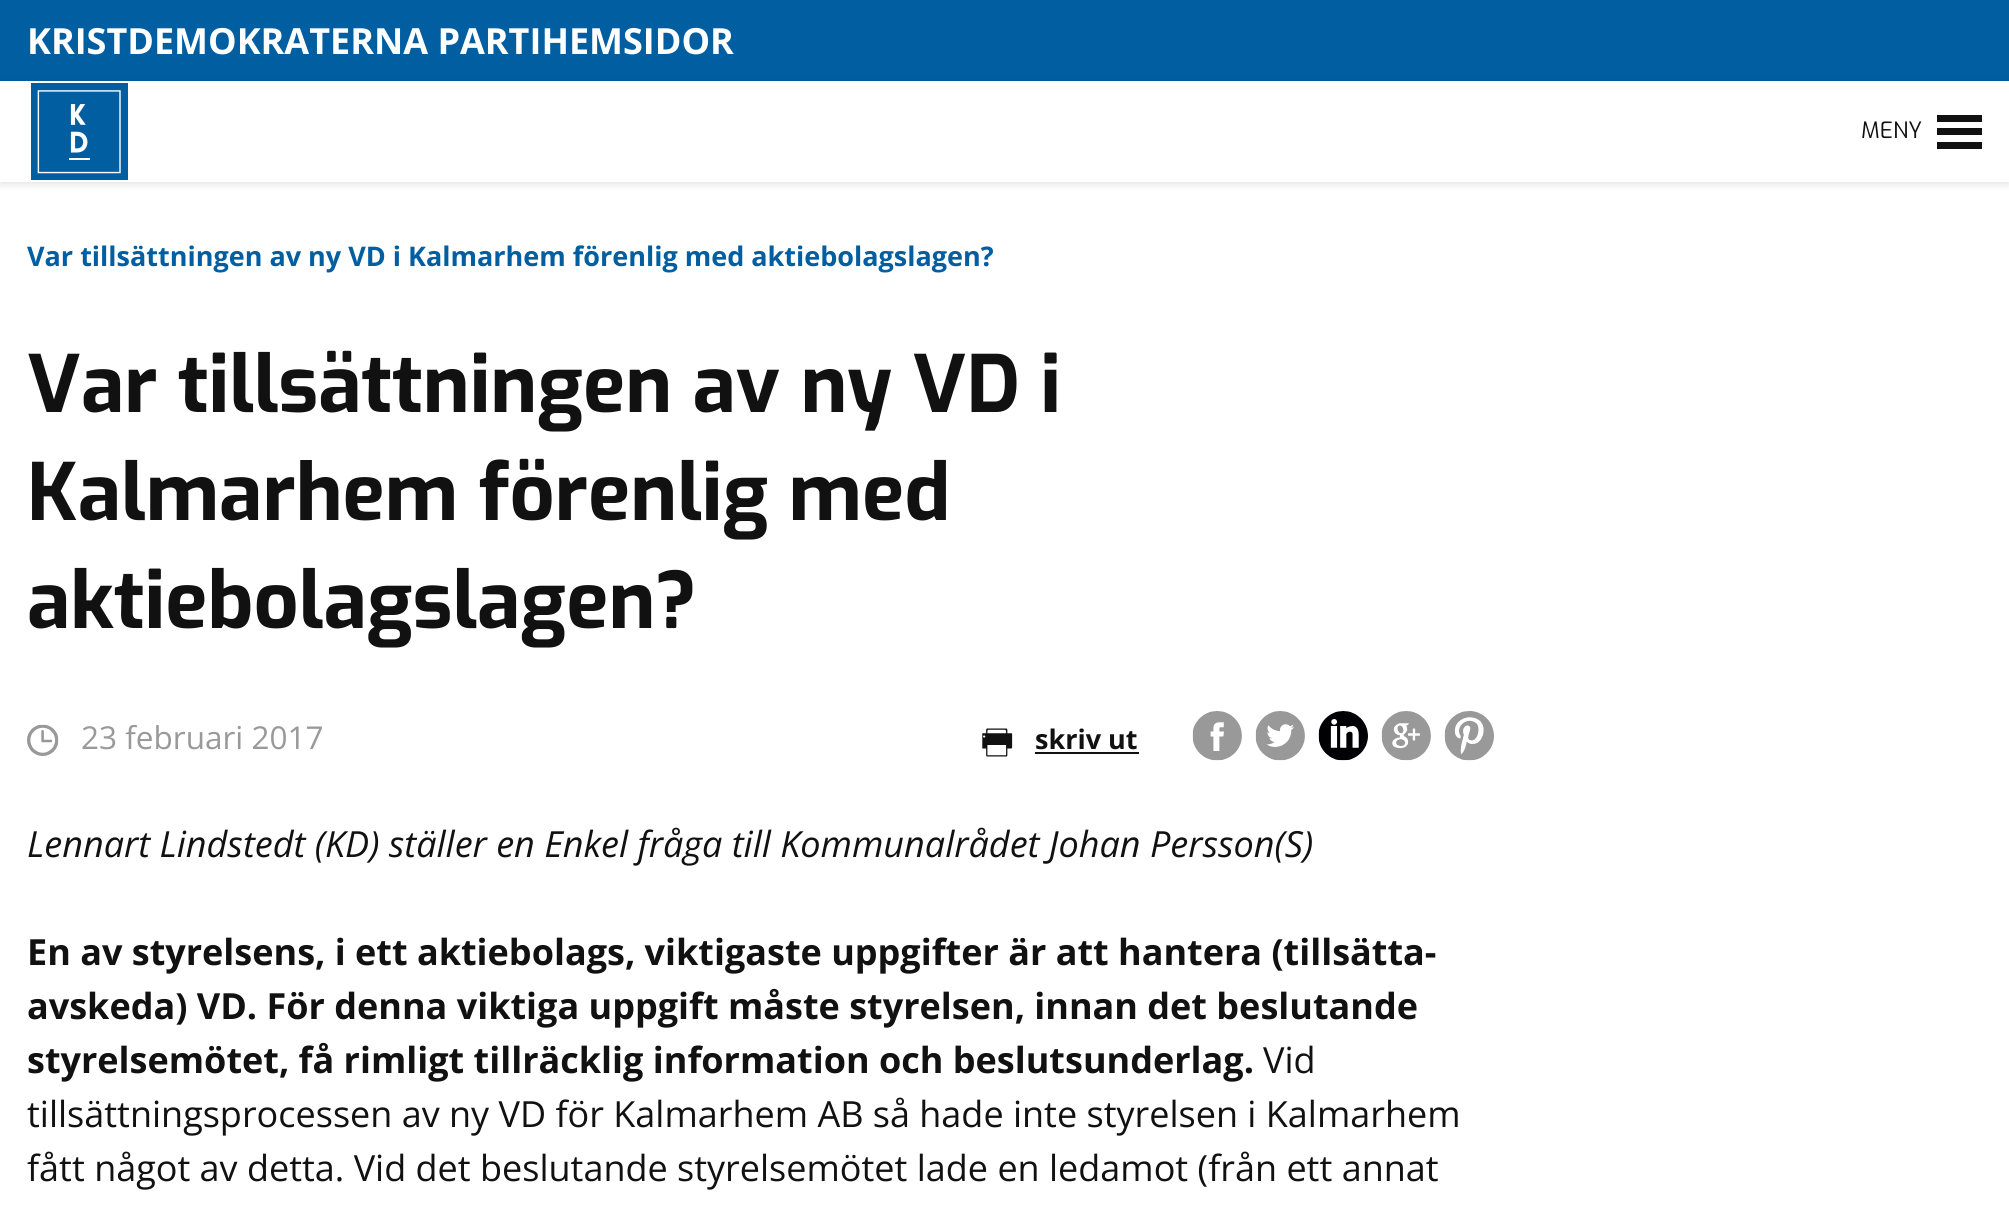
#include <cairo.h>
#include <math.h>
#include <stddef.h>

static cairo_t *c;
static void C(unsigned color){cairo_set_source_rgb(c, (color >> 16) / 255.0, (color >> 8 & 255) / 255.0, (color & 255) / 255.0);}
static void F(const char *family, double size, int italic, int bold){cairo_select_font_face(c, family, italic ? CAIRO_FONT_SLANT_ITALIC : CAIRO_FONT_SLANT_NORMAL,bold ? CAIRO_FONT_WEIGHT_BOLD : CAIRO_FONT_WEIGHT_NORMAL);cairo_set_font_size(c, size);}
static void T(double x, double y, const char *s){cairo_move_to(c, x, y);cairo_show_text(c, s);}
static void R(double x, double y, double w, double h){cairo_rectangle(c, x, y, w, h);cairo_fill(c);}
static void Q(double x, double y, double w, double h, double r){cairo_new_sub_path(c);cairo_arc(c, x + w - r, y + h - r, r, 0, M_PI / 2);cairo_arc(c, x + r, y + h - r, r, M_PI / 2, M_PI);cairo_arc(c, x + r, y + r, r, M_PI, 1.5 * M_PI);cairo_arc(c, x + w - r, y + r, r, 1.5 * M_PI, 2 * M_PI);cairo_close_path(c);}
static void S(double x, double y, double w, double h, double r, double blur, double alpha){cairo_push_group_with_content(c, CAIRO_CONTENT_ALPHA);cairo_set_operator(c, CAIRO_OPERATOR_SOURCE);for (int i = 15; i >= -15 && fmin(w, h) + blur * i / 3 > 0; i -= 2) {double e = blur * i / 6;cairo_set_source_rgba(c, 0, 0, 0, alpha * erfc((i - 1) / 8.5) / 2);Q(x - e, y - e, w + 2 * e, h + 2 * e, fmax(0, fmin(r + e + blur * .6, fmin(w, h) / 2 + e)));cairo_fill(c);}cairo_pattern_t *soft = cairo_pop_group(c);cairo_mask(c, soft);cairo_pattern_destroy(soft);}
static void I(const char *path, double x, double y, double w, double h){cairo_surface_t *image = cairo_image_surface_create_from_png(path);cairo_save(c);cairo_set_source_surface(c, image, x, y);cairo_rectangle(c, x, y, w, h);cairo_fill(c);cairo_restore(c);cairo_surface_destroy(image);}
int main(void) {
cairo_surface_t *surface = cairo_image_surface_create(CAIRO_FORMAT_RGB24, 2009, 1219);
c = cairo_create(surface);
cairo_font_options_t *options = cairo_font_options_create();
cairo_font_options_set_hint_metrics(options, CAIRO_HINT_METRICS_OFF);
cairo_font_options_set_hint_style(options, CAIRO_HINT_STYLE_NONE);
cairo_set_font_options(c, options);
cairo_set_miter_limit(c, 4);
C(0xffffff);
cairo_paint(c);
C(0x005ea1);
R(0,0,2009,81);
F("Open Sans",36,0,1);
C(0xffffff);
T(27,54,"KRISTDEMOKRATERNA PARTIHEMSIDOR");
cairo_save(c);
cairo_set_fill_rule(c,CAIRO_FILL_RULE_EVEN_ODD);
cairo_new_path(c);
cairo_move_to(c,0,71);
cairo_line_to(c,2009,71);
cairo_line_to(c,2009,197);
cairo_line_to(c,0,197);
cairo_close_path(c);
cairo_move_to(c,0,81);
cairo_line_to(c,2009,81);
cairo_line_to(c,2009,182);
cairo_line_to(c,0,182);
cairo_close_path(c);
cairo_clip(c);
C(0x000000);
S(0,83,2009,102,0,3.5,.1);
cairo_restore(c);
I("1.png",31,83,97,97);
C(0x111111);
R(1937,115,45,7);
F("Exo",22.5,0,0);
T(1861,138,"MENY");
R(1937,128,45,7);
R(1937,142,45,7);
F("Open Sans",27,0,1);
C(0x005ea1);
T(27,266,"Var tillsättningen av ny VD i Kalmarhem förenlig med aktiebolagslagen?");
F("Exo",78.75,0,1);
C(0x111111);
T(27,412,"Var tillsättningen av ny VD i");
T(27,520,"Kalmarhem förenlig med");
T(27,628,"aktiebolagslagen?");
I("2.png",27,724,32,32);
F("Open Sans",31.5,0,0);
C(0x999999);
T(81,749,"23 februari 2017");
I("3.png",982,728,31,29);
F("Open Sans",27,0,1);
C(0x111111);
T(1035,749,"skriv ut");
R(1035,752,104,2);
I("4.png",1192,711,50,50);
I("5.png",1255,711,50,50);
I("6.png",1318,711,50,50);
I("7.png",1381,711,50,50);
I("8.png",1444,711,50,50);
F("Open Sans",36,1,0);
T(27,857,"Lennart Lindstedt (KD) ställer en Enkel fråga till Kommunalrådet Johan Persson(S)");
F("Open Sans",36,0,1);
T(27,965,"En av styrelsens, i ett aktiebolags, viktigaste uppgifter är att hantera (tillsätta-");
T(27,1019,"avskeda) VD. För denna viktiga uppgift måste styrelsen, innan det beslutande");
T(27,1073,"styrelsemötet, få rimligt tillräcklig information och beslutsunderlag.");
F("Open Sans",36,0,0);
T(1263,1073,"Vid");
T(27,1127,"tillsättningsprocessen av ny VD för Kalmarhem AB så hade inte styrelsen i Kalmarhem");
T(27,1181,"fått något av detta. Vid det beslutande styrelsemötet lade en ledamot (från ett annat");
cairo_surface_write_to_png(surface, "o.png");
cairo_font_options_destroy(options);
cairo_destroy(c);
cairo_surface_destroy(surface);
return 0;
}
